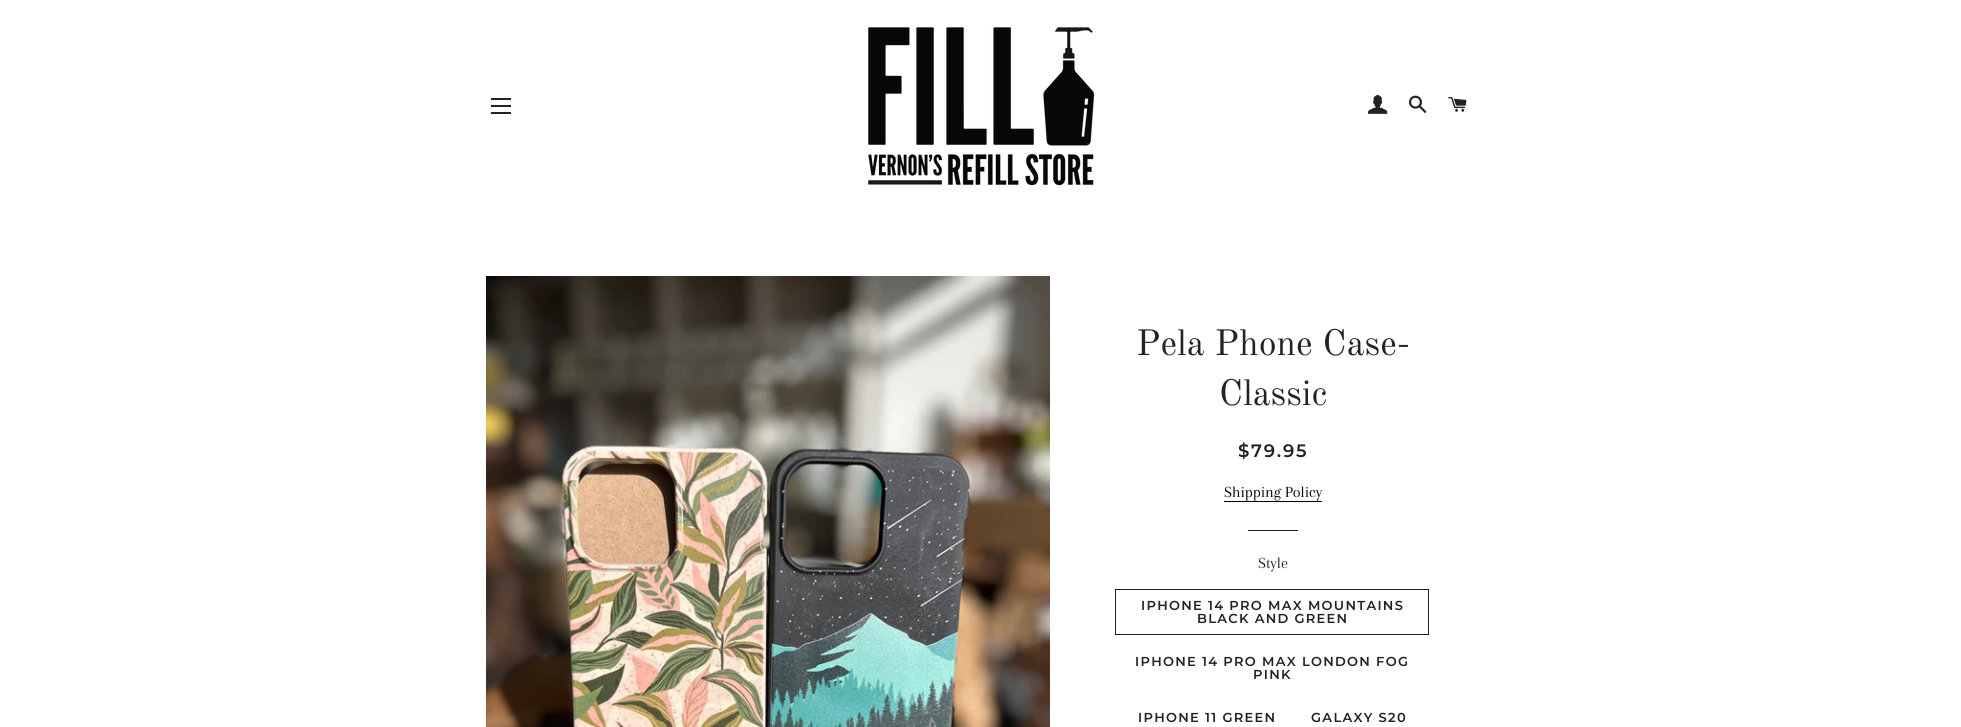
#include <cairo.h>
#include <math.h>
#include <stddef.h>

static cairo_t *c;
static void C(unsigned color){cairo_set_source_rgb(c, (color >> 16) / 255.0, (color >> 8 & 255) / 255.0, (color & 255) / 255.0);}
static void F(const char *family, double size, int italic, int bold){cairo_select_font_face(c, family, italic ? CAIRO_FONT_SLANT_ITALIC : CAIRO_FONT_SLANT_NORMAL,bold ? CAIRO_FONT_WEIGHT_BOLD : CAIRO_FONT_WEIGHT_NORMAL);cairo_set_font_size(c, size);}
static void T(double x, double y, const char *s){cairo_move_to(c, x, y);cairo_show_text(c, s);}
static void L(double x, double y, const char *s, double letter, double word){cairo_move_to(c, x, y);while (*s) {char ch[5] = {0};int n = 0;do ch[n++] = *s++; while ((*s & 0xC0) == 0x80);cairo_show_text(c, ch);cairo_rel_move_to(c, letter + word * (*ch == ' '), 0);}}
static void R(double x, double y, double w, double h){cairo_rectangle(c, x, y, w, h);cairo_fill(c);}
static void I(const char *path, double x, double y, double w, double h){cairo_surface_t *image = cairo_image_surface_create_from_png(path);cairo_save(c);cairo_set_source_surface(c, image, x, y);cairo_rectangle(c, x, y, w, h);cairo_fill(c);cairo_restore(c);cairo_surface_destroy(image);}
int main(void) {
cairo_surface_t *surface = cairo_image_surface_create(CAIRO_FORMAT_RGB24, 1961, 727);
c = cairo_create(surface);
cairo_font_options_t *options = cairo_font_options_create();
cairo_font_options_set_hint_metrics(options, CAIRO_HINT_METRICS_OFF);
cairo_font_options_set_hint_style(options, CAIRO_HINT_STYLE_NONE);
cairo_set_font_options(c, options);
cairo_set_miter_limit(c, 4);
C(0xffffff);
cairo_paint(c);
C(0x222323);
R(491,98,20,2);
R(491,105,20,2);
R(491,112,20,2);
I("1.png",868,27,227,159);
I("2.png",1368,94,20,20);
I("3.png",1409,95,18,18);
I("4.png",1448,97,19,15);
I("5.png",486,276,564,451);
F("Old Standard TT",36,0,0);
T(1136,355,"Pela Phone Case-");
T(1219,405,"Classic");
F("Montserrat SemiBold",18,0,0);
L(1238,457,"$79.95",1.75,0);
F("Arapey",16,0,0);
C(0x000000);
T(1224,497,"Shipping Policy");
R(1224,501,98,1);
C(0x1c1d1d);
R(1248,530,50,1);
C(0x222323);
T(1258,568,"Style");
cairo_rectangle(c,1115.5,589.5,313,45);
cairo_set_line_width(c,1);
cairo_stroke(c);
F("Montserrat SemiBold",13,0,0);
L(1141,610,"IPHONE 14 PRO MAX MOUNTAINS",1.3,0);
L(1197,623,"BLACK AND GREEN",1.3,0);
L(1135,666,"IPHONE 14 PRO MAX LONDON FOG",1.3,0);
L(1253,679,"PINK",1.3,0);
L(1138,722,"IPHONE 11 GREEN",1.3,0);
L(1311,722,"GALAXY S20",1.3,0);
cairo_surface_write_to_png(surface, "o.png");
cairo_font_options_destroy(options);
cairo_destroy(c);
cairo_surface_destroy(surface);
return 0;
}
